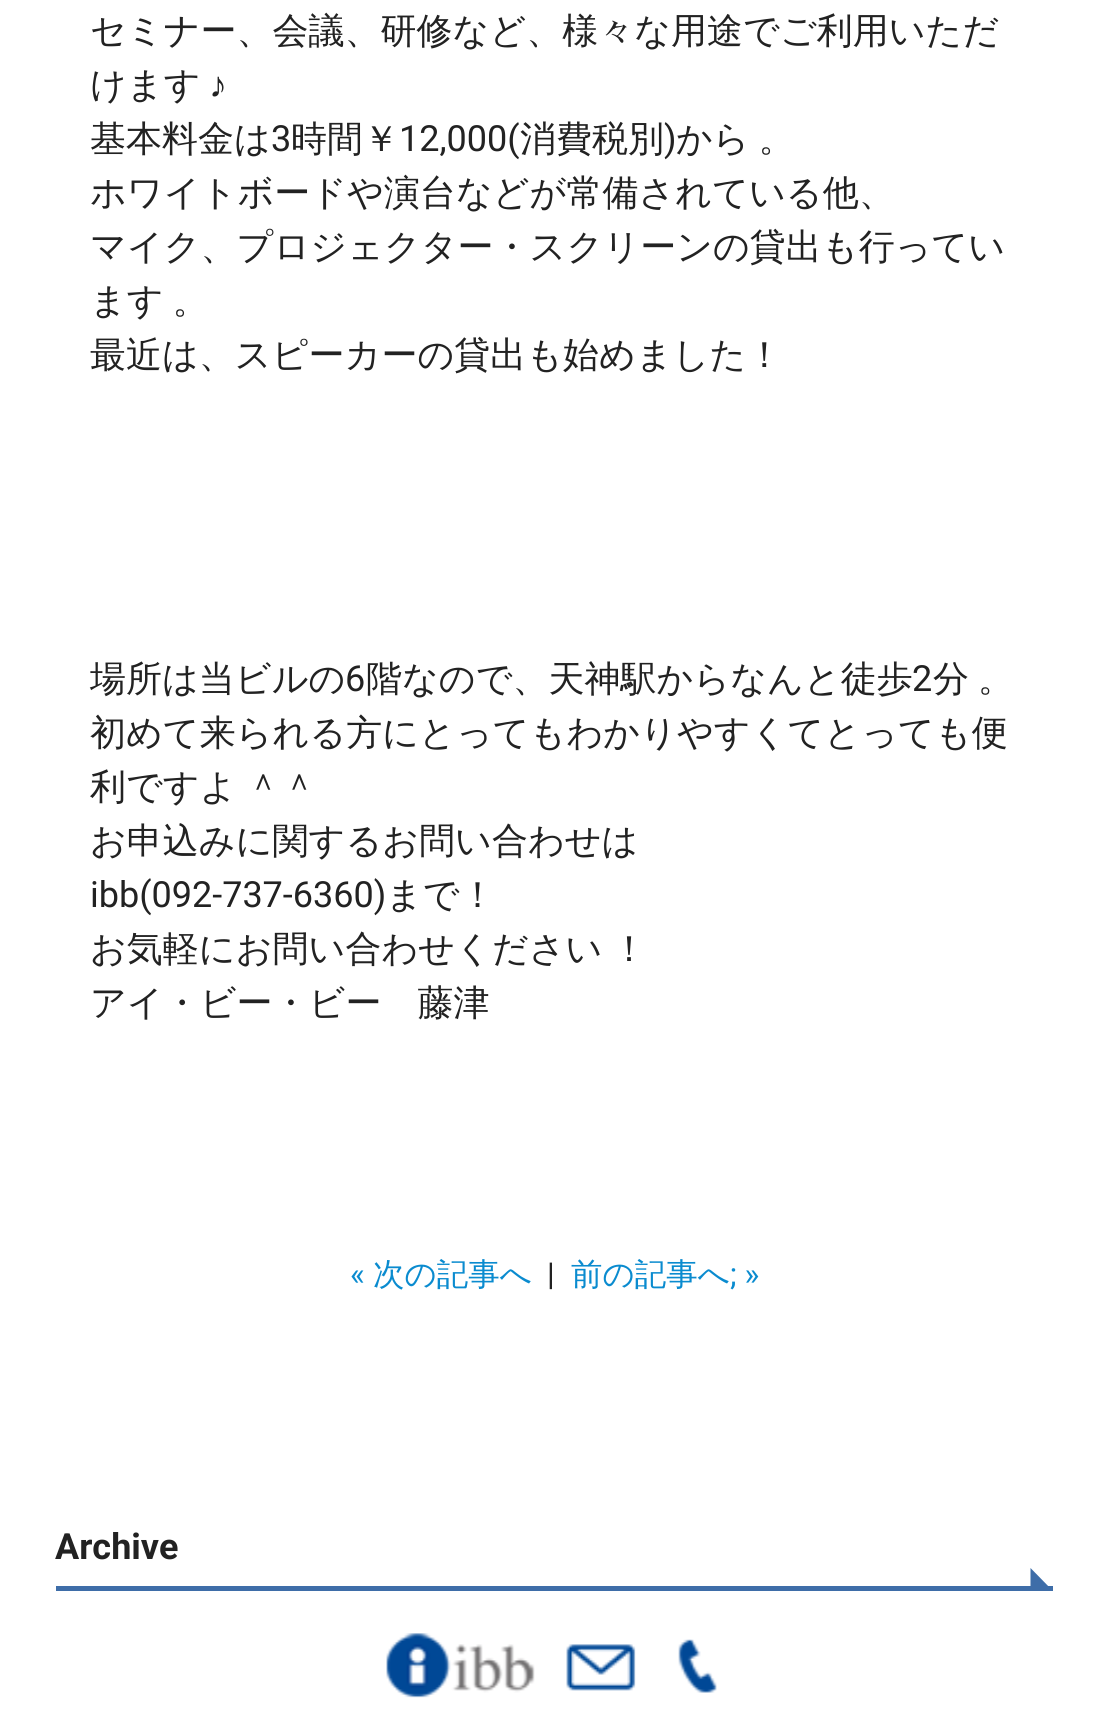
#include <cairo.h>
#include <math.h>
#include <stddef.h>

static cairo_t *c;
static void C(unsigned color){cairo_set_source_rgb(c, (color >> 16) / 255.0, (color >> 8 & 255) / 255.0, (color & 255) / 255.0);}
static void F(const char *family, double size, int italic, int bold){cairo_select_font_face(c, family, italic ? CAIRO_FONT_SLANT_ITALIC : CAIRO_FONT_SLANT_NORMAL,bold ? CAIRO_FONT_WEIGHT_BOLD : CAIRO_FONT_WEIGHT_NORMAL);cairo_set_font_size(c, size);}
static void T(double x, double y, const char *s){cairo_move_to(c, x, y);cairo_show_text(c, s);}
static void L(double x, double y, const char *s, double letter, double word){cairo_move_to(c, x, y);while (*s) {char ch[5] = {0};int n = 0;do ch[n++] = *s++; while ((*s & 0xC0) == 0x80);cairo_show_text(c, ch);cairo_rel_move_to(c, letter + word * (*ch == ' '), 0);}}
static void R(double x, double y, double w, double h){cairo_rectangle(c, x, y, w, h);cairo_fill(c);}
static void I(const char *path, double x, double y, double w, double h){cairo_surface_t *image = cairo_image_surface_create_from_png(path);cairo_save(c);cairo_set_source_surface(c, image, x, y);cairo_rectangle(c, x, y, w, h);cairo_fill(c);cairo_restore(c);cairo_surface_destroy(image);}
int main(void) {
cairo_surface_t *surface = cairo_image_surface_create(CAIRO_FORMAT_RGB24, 1108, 1724);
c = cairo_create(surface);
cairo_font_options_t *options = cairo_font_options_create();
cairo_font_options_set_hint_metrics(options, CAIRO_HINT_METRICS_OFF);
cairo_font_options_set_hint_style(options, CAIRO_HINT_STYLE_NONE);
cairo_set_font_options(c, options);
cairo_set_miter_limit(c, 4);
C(0xffffff);
cairo_paint(c);
F("WenQuanYi Zen Hei Medium",36,0,0);
C(0x222222);
T(90,43,"セミナー、会議、研修など、様々な用途でご利用いただ");
T(90,97,"けます");
F("Liberation Sans",36,0,0);
T(209,97,"♪");
F("WenQuanYi Zen Hei Medium",36,0,0);
T(90,151,"基本料金は");
F("Roboto",36,0,0);
T(271,151,"3");
F("WenQuanYi Zen Hei Medium",36,0,0);
T(291,151,"時間￥");
F("Roboto",36,0,0);
T(399,151,"12,000(");
F("WenQuanYi Zen Hei Medium",36,0,0);
T(520,151,"消費税別");
F("Roboto",36,0,0);
T(664,151,")");
F("WenQuanYi Zen Hei Medium",36,0,0);
L(676,151,"から 。",0,-2);
T(90,205,"ホワイトボードや演台などが常備されている他、");
T(90,259,"マイク、プロジェクター・スクリーンの貸出も行ってい");
L(90,313,"ます 。",0,-2);
T(90,367,"最近は、スピーカーの貸出も始めました！");
T(90,691,"場所は当ビルの");
F("Roboto",36,0,0);
T(345,691,"6");
F("WenQuanYi Zen Hei Medium",36,0,0);
T(366,691,"階なので、天神駅からなんと徒歩");
F("Roboto",36,0,0);
T(912,691,"2");
F("WenQuanYi Zen Hei Medium",36,0,0);
L(933,691,"分 。",0,-2);
T(90,745,"初めて来られる方にとってもわかりやすくてとっても便");
L(90,799,"利ですよ ＾＾",0,-2);
T(90,853,"お申込みに関するお問い合わせは");
F("Roboto",36,0,0);
T(90,907,"ibb(092-737-6360)");
F("WenQuanYi Zen Hei Medium",36,0,0);
T(386,907,"まで！");
L(90,961,"お気軽にお問い合わせください ！",0,-2);
T(90,1015,"アイ・ビー・ビー　藤津");
F("Roboto",31.5,0,0);
C(0x0a8bcf);
T(350,1285,"«");
F("WenQuanYi Zen Hei Medium",31.5,0,0);
T(373,1285,"次の記事へ");
F("Roboto",31.5,0,0);
C(0x222222);
T(547,1285,"|");
F("WenQuanYi Zen Hei Medium",31.5,0,0);
C(0x0a8bcf);
T(571,1285,"前の記事へ");
F("Roboto",31.5,0,0);
T(730,1285,"; »");
F("Roboto",36,0,1);
C(0x222222);
T(55,1559,"Archive");
C(0x3e6da8);
cairo_new_path(c);
cairo_move_to(c,1053,1591);
cairo_line_to(c,1030.5,1591);
cairo_line_to(c,1030.5,1568);
cairo_close_path(c);
cairo_fill(c);
R(56,1586,997,5);
I("1.png",386,1633,149,65);
I("2.png",566,1644,70,47);
I("3.png",678,1639,39,54);
cairo_surface_write_to_png(surface, "o.png");
cairo_font_options_destroy(options);
cairo_destroy(c);
cairo_surface_destroy(surface);
return 0;
}
